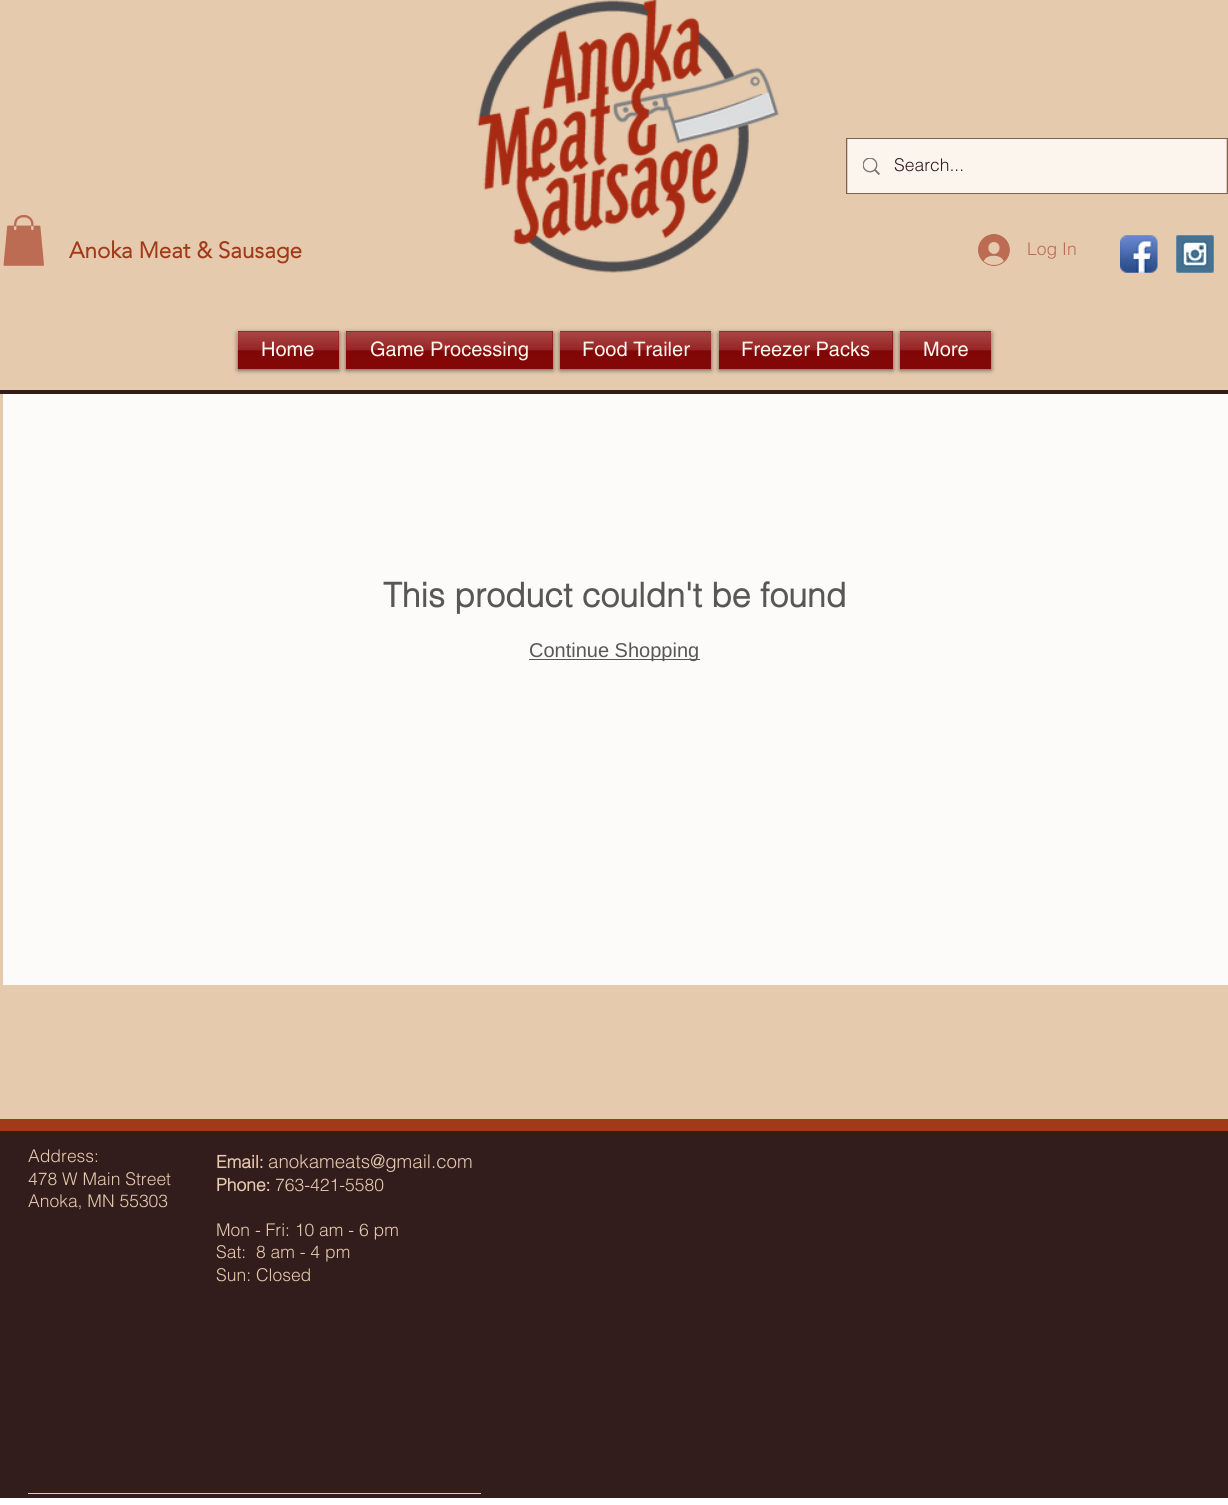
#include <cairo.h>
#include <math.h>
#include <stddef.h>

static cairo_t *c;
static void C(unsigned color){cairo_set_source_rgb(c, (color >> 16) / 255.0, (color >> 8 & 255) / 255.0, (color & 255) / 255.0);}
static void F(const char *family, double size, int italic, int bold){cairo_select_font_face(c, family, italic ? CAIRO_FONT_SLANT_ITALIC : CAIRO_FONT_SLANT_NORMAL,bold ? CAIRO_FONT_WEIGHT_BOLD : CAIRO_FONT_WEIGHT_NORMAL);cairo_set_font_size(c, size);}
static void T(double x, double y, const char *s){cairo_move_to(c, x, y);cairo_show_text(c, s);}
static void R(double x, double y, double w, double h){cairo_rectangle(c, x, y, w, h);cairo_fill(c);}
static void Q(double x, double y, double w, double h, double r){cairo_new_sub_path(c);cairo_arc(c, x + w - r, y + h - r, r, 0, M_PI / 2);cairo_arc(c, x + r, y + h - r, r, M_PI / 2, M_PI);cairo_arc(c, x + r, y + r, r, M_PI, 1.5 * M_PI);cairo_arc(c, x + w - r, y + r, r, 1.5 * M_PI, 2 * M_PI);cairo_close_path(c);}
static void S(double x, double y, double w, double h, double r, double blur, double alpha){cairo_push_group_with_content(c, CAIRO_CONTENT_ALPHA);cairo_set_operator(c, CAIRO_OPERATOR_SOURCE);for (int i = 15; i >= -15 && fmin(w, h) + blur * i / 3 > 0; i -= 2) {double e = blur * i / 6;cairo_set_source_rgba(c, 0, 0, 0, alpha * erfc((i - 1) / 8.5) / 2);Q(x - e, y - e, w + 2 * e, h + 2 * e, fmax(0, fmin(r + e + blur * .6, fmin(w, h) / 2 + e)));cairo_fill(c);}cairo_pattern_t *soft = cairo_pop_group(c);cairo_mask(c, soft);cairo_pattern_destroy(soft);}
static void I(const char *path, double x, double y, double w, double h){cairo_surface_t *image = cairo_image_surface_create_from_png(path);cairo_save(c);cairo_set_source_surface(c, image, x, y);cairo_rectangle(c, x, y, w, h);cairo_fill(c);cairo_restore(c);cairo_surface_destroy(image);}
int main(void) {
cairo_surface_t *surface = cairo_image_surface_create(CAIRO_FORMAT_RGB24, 1228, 1505);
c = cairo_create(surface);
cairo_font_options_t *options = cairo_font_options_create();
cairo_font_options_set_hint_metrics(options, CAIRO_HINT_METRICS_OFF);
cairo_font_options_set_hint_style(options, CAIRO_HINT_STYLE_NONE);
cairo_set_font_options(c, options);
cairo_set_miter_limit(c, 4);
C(0xffffff);
cairo_paint(c);
C(0xe5caae);
R(0,0,1228,1119);
I("1.png",477,0,302,274);
cairo_rectangle(c,846.5,138.5,381,55);
C(0x7a6256);
cairo_set_line_width(c,1);
cairo_stroke(c);
C(0xfcf5ee);
R(848,139,378,54);
I("2.png",863,158,17,17);
F("helvetica Light",17.5,0,0);
C(0x331c1c);
T(894,171,"Search...");
I("3.png",3,215,41,51);
F("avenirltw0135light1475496",22.5,0,1);
C(0xa03a18);
T(69,258,"Anoka Meat & Sausage");
I("4.png",978,234,32,32);
F("helvetica Light",17.5,0,0);
C(0xbc6c53);
T(1027,255,"Log In");
I("5.png",1120,235,38,38);
I("6.png",1176,235,38,38);
C(0x000000);
S(238,333,101,37,0,2.5,.6);
C(0x8a0707);
R(238,331,101,38);
I("7.png",237,331,102,38);
F("helvetica",20,0,0);
C(0xfcf5ee);
T(261,356,"Home");
C(0x000000);
S(346,333,207,37,0,2.5,.6);
C(0x8a0707);
R(346,331,207,38);
I("8.png",346,331,207,38);
C(0xfcf5ee);
T(370,356,"Game Processing");
C(0x000000);
S(560,333,151,37,0,2.5,.6);
C(0x8a0707);
R(560,331,151,38);
I("9.png",560,331,152,38);
C(0xfcf5ee);
T(582,356,"Food Trailer");
C(0x000000);
S(719,333,174,37,0,2.5,.6);
C(0x8a0707);
R(719,331,174,38);
I("10.png",718,331,175,38);
C(0xfcf5ee);
T(741,356,"Freezer Packs");
C(0x000000);
S(900,333,91,37,0,2.5,.6);
C(0x8a0707);
R(900,331,91,38);
I("11.png",900,331,92,38);
C(0xfcf5ee);
T(923,356,"More");
C(0x331c1c);
R(0,390,1228,4);
C(0xfdfbf9);
R(3,394,1225,591);
F("helvetica",33.75,0,1);
C(0x575757);
T(383,607,"This product couldn't be found");
R(529,659,171,1);
F("Liberation Sans",20,0,0);
T(529,657,"Continue Shopping");
C(0x331c1c);
R(0,1131,1228,367);
C(0xa03a18);
R(0,1119,1228,12);
F("helvetica Light",17.5,0,0);
C(0xe5caae);
T(28,1162,"Address:");
T(28,1185,"478 W Main Street");
T(28,1207,"Anoka, MN 55303");
F("helvetica",17.5,0,1);
T(216,1168,"Email:");
F("helvetica Light",18.75,0,0);
T(268,1168,"anokameats@gmail.com");
F("helvetica",17.5,0,1);
T(216,1191,"Phone:");
F("helvetica Light",17.5,0,0);
T(275,1191,"763-421-5580");
T(216,1236,"Mon - Fri: 10 am - 6 pm");
T(216,1258,"Sat:  8 am - 4 pm");
T(216,1281,"Sun: Closed");
R(28,1493,453,1);
cairo_surface_write_to_png(surface, "o.png");
cairo_font_options_destroy(options);
cairo_destroy(c);
cairo_surface_destroy(surface);
return 0;
}
